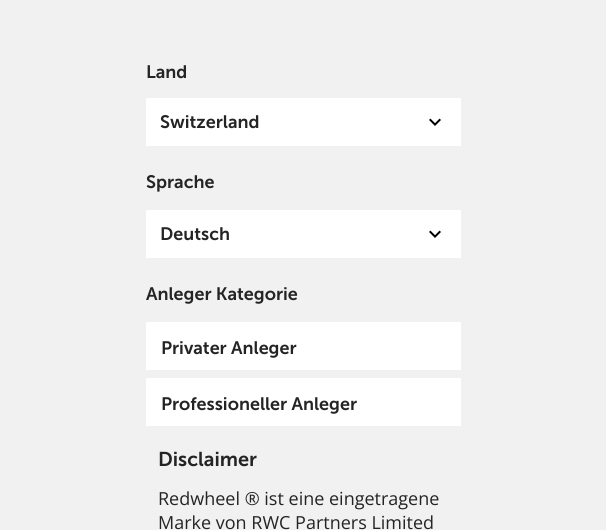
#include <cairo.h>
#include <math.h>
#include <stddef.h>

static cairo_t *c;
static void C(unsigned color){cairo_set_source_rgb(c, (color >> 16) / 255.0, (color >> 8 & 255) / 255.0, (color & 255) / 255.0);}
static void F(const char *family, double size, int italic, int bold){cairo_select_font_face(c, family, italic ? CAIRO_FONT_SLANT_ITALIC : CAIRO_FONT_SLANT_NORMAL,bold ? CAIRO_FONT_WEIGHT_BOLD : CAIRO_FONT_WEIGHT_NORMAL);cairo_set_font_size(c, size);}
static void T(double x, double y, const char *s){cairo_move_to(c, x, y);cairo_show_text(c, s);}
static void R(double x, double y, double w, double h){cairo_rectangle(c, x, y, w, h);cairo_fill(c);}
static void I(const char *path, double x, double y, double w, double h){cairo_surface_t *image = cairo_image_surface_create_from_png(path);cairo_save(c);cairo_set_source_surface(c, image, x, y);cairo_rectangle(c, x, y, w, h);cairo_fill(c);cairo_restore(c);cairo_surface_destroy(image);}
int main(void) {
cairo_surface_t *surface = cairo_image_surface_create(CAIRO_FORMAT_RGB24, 606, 530);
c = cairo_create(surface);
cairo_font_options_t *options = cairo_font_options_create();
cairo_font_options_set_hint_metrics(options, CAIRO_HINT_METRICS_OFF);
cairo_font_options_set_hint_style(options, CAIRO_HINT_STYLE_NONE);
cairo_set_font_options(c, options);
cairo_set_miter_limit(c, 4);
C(0xf1f1f1);
cairo_paint(c);
F("Museo Sans SemiBold",18,0,0);
C(0x242424);
T(146,78,"Land");
C(0xffffff);
R(146,98,315,48);
C(0x242424);
T(160,128,"Switzerland");
I("1.png",429,118,12,8);
T(146,188,"Sprache");
C(0xffffff);
R(146,210,315,48);
C(0x242424);
T(160,240,"Deutsch");
I("1.png",429,230,12,8);
T(146,300,"Anleger Kategorie");
C(0xffffff);
R(146,322,315,48);
C(0x242424);
T(161,354,"Privater Anleger");
C(0xffffff);
R(146,378,315,48);
C(0x242424);
T(161,410,"Professioneller Anleger");
F("Museo Sans SemiBold",20,0,0);
T(158,466,"Disclaimer");
F("Open Sans",18,0,0);
T(158,505,"Redwheel ® ist eine eingetragene");
T(158,529,"Marke von RWC Partners Limited");
cairo_surface_write_to_png(surface, "o.png");
cairo_font_options_destroy(options);
cairo_destroy(c);
cairo_surface_destroy(surface);
return 0;
}
